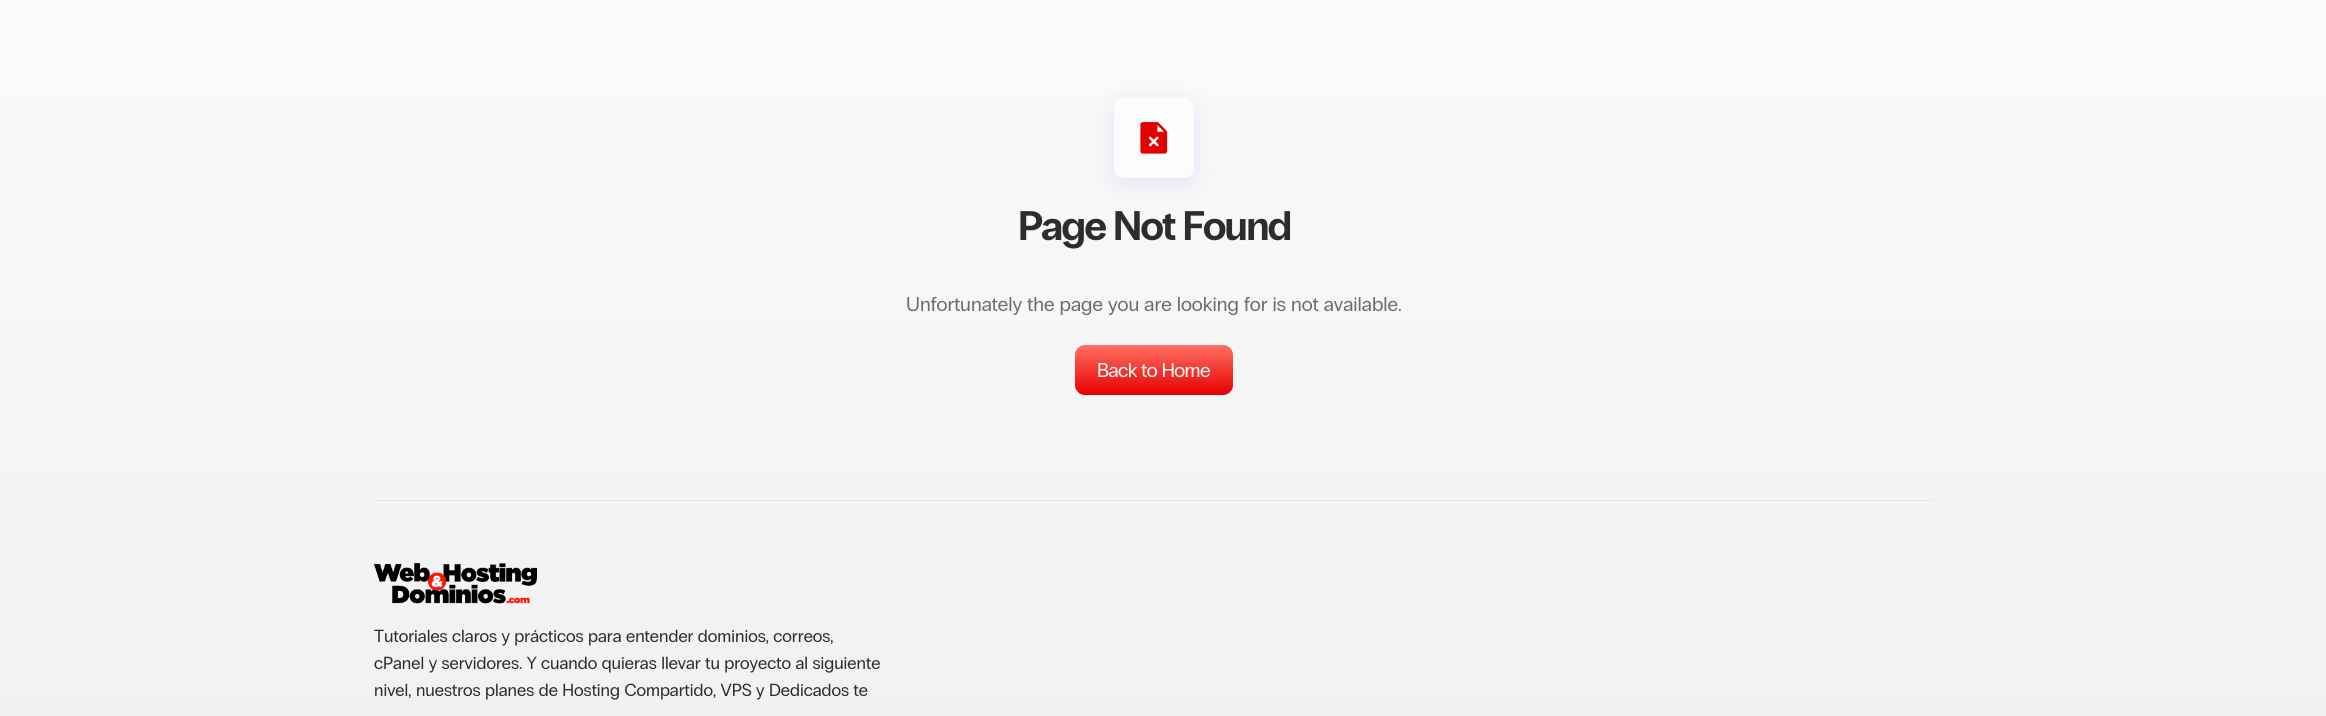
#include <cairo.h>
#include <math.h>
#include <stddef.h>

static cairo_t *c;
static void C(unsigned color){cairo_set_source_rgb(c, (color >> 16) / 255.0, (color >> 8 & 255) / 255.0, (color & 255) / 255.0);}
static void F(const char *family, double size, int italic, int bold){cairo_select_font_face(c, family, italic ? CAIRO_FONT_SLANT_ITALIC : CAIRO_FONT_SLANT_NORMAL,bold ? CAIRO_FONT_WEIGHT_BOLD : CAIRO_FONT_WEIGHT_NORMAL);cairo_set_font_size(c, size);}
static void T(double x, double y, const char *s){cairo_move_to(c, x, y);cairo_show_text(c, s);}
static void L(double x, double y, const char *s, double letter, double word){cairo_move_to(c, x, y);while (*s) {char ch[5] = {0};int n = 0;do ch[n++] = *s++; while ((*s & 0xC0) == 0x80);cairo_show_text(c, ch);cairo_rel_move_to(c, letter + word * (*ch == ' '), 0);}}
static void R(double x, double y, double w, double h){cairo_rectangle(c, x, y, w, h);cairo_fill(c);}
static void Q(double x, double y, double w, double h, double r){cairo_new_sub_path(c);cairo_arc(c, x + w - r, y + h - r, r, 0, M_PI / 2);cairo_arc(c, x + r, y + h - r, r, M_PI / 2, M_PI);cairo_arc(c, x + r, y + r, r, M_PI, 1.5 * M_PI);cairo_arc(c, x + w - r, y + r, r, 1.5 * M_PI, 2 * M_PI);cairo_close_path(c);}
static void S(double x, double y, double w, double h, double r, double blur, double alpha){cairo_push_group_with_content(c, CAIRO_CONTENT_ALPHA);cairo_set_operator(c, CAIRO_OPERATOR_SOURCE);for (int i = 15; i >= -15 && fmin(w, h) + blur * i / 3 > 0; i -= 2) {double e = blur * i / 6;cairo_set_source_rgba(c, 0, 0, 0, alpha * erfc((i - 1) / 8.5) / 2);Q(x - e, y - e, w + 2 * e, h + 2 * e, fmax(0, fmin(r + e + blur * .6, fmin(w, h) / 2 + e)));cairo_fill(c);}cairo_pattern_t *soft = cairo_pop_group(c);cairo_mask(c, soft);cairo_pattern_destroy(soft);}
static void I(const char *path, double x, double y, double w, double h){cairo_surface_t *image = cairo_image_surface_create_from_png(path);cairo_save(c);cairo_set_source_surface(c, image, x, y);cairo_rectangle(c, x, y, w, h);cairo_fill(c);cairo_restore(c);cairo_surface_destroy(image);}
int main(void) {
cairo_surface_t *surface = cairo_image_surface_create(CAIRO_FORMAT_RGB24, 2326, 716);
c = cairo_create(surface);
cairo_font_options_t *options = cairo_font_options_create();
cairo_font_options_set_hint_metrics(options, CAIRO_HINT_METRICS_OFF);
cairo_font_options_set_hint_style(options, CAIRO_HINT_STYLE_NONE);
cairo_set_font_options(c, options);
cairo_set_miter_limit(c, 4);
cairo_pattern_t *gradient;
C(0xffffff);
cairo_paint(c);
gradient = cairo_pattern_create_linear(1154,-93,1154,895);
cairo_pattern_add_color_stop_rgba(gradient,0,0.988,0.988,0.988,1);
cairo_pattern_add_color_stop_rgba(gradient,1,0.937,0.937,0.937,1);
cairo_set_source(c,gradient);
cairo_pattern_destroy(gradient);
R(0,0,2326,716);
C(0x7272ff);
S(1114,104,80,80,10,12.5,.15);
C(0xfcfcfc);
Q(1114,98,80,80,10);
cairo_fill(c);
I("1.png",1140,122,28,32);
F("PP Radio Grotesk",41.25,0,1);
C(0x2d2d2d);
L(1018,240,"Page Not Found",-1.6,0);
F("PP Radio Grotesk",20,0,0);
C(0x6d6d6d);
T(906,311,"Unfortunately the page you are looking for is not available.");
gradient = cairo_pattern_create_linear(1154,345,1154,395);
cairo_pattern_add_color_stop_rgba(gradient,0,1,0.439,0.388,1);
cairo_pattern_add_color_stop_rgba(gradient,1,0.898,0,0,1);
cairo_set_source(c,gradient);
cairo_pattern_destroy(gradient);
Q(1075,345,158,50,10);
cairo_fill(c);
C(0xffffff);
L(1097,377,"Back to Home",-.6,0);
C(0xeae5e3);
R(374,500,1560,1);
I("2.png",373,563,164,41);
F("PP Radio Grotesk",17.5,0,0);
C(0x2d2d2d);
T(374,642,"Tutoriales claros y prácticos para entender dominios, correos,");
T(374,669,"cPanel y servidores. Y cuando quieras llevar tu proyecto al siguiente");
T(374,696,"nivel, nuestros planes de Hosting Compartido, VPS y Dedicados te");
cairo_surface_write_to_png(surface, "o.png");
cairo_font_options_destroy(options);
cairo_destroy(c);
cairo_surface_destroy(surface);
return 0;
}
